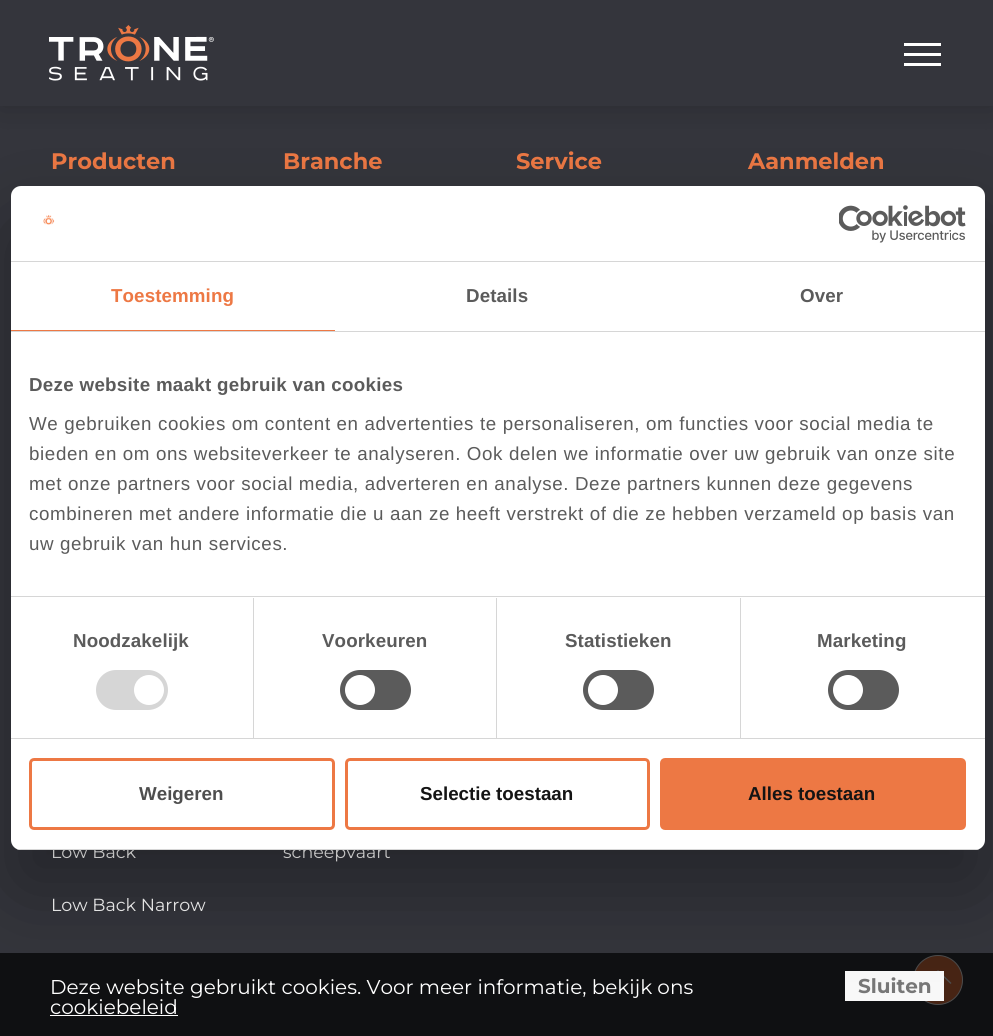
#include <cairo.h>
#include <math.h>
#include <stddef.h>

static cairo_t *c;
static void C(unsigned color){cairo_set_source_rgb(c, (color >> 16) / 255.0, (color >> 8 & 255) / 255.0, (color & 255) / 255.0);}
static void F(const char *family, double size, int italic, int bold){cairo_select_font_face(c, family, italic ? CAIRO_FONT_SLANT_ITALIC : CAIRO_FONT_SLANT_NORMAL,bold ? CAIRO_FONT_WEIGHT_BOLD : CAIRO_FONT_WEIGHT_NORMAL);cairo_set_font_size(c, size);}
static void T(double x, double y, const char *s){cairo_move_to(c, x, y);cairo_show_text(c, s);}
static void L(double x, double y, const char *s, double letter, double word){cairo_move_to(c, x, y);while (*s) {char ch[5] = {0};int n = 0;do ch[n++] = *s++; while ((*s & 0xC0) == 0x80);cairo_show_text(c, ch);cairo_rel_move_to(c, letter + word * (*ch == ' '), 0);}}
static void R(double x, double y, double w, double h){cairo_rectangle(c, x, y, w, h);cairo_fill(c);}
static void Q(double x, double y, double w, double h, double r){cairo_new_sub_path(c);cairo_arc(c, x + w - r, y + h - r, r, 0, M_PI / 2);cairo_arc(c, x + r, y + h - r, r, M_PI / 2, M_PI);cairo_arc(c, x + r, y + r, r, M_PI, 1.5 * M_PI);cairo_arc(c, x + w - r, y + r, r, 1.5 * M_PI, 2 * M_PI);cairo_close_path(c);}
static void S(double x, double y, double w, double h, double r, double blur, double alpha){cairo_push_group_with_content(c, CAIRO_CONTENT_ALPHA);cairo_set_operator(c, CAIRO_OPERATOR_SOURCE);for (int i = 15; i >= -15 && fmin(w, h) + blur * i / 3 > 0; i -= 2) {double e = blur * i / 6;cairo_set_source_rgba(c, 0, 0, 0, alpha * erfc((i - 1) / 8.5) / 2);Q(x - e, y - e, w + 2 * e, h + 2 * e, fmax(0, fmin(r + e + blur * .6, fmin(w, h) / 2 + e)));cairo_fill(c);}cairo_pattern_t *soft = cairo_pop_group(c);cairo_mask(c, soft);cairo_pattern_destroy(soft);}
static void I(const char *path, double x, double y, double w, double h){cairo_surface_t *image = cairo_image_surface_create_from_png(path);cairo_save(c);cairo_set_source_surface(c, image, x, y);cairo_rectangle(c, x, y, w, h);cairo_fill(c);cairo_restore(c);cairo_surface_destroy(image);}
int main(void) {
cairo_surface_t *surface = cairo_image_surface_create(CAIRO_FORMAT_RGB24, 993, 1036);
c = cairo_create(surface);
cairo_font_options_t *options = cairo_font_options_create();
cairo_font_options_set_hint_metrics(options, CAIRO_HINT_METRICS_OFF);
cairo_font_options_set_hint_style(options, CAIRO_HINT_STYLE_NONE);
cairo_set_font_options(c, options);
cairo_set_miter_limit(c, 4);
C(0x34353c);
cairo_paint(c);
C(0x000000);
S(0,0,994,106,0,15.5,.2);
C(0x34353c);
R(0,0,993,106);
I("1.png",49,25,165,56);
C(0xffffff);
R(904,53,37,3);
R(904,43,37,3);
R(904,63,37,3);
F("Montserrat Thin",22.5,0,0);
C(0xed7844);
T(51,169,"Producten");
F("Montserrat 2 Thin",17.5,0,0);
C(0xffffff);
T(51,858,"Low Back");
T(51,911,"Low Back Narrow");
F("Montserrat Thin",22.5,0,0);
C(0xed7844);
T(283,169,"Branche");
F("Montserrat 2 Thin",17.5,0,0);
C(0xffffff);
T(283,858,"scheepvaart");
F("Montserrat Thin",22.5,0,0);
C(0xed7844);
T(516,169,"Service");
T(748,169,"Aanmelden");
cairo_new_path(c);
cairo_arc(c,938,980,24.5,0,2 * M_PI);
cairo_fill_preserve(c);
C(0xffffff);
cairo_set_line_width(c,1);
cairo_stroke(c);
cairo_new_path(c);
cairo_move_to(c,937,971);
cairo_line_to(c,938,970);
cairo_line_to(c,951.5,983);
cairo_line_to(c,950.5,984);
cairo_close_path(c);
cairo_fill(c);
cairo_set_source_rgba(c,0,0,0,0.7);
R(0,953,993,83);
F("Montserrat 2 Thin",20,0,0);
C(0xffffff);
T(50,994,"Deze website gebruikt cookies. Voor meer informatie, bekijk ons");
T(50,1014,"cookiebeleid");
R(50,1015,128,1);
C(0xf8f8f8);
R(845,971,99,30);
F("Montserrat Thin",20,0,0);
C(0x777777);
T(858,993,"Sluiten");
C(0x000000);
S(11,226,974,664,10,42.5,.3);
C(0xffffff);
Q(11,186,974,664,10);
cairo_fill(c);
C(0xd6d6d6);
R(11,261,974,1);
I("2.png",43,215,12,10);
I("3.png",839,205,127,38);
R(11,331,974,1);
C(0xed7844);
R(11,330,324,1);
F("Liberation Sans",18.75,0,1);
L(111,302,"Toestemming",.1,0);
C(0x5b5b5b);
L(466,302,"Details",.1,0);
L(800,302,"Over",.1,0);
C(0xd6d6d6);
R(11,596,974,1);
C(0x5b5b5b);
L(29,391,"Deze website maakt gebruik van cookies",.3,0);
F("Liberation Sans",18.75,0,0);
L(29,430,"We gebruiken cookies om content en advertenties te personaliseren, om functies voor social media te",.62,0);
L(29,460,"bieden en om ons websiteverkeer te analyseren. Ook delen we informatie over uw gebruik van onze site",.62,0);
L(29,490,"met onze partners voor social media, adverteren en analyse. Deze partners kunnen deze gegevens",.62,0);
L(29,520,"combineren met andere informatie die u aan ze heeft verstrekt of die ze hebben verzameld op basis van",.62,0);
L(29,550,"uw gebruik van hun services.",.62,0);
C(0xd6d6d6);
R(11,738,974,1);
R(253,598,1,140);
F("Liberation Sans",18.75,0,1);
C(0x5b5b5b);
L(73,647,"Noodzakelijk",.1,0);
C(0xd6d6d6);
Q(96,670,72,40,20);
cairo_fill(c);
C(0xffffff);
cairo_arc(c,149,690,15,0,2 * M_PI);
cairo_fill(c);
C(0xd6d6d6);
R(496,598,1,140);
C(0x5b5b5b);
L(322,647,"Voorkeuren",.1,0);
Q(340,670,71,40,20);
cairo_fill(c);
C(0xffffff);
cairo_arc(c,360,690,15,0,2 * M_PI);
cairo_fill(c);
C(0xd6d6d6);
R(740,598,1,140);
C(0x5b5b5b);
L(565,647,"Statistieken",.1,0);
Q(583,670,71,40,20);
cairo_fill(c);
C(0xffffff);
cairo_arc(c,603,690,15,0,2 * M_PI);
cairo_fill(c);
C(0x5b5b5b);
L(817,647,"Marketing",.1,0);
Q(828,670,71,40,20);
cairo_fill(c);
C(0xffffff);
cairo_arc(c,848,690,15,0,2 * M_PI);
cairo_fill(c);
cairo_save(c);
Q(11,186,974,664,10);
cairo_clip(c);
C(0xd6d6d6);
R(11,849,974,1);
cairo_restore(c);
Q(30.5,759.5,303,69,3.5);
C(0xed7844);
cairo_set_line_width(c,3);
cairo_stroke(c);
C(0x4e4e4e);
T(139,800,"Weigeren");
Q(346.5,759.5,302,69,3.5);
C(0xed7844);
cairo_stroke(c);
C(0x141414);
T(420,800,"Selectie toestaan");
C(0xed7844);
Q(661.5,759.5,303,69,3.5);
cairo_fill_preserve(c);
cairo_stroke(c);
C(0x141414);
T(748,800,"Alles toestaan");
cairo_surface_write_to_png(surface, "o.png");
cairo_font_options_destroy(options);
cairo_destroy(c);
cairo_surface_destroy(surface);
return 0;
}
